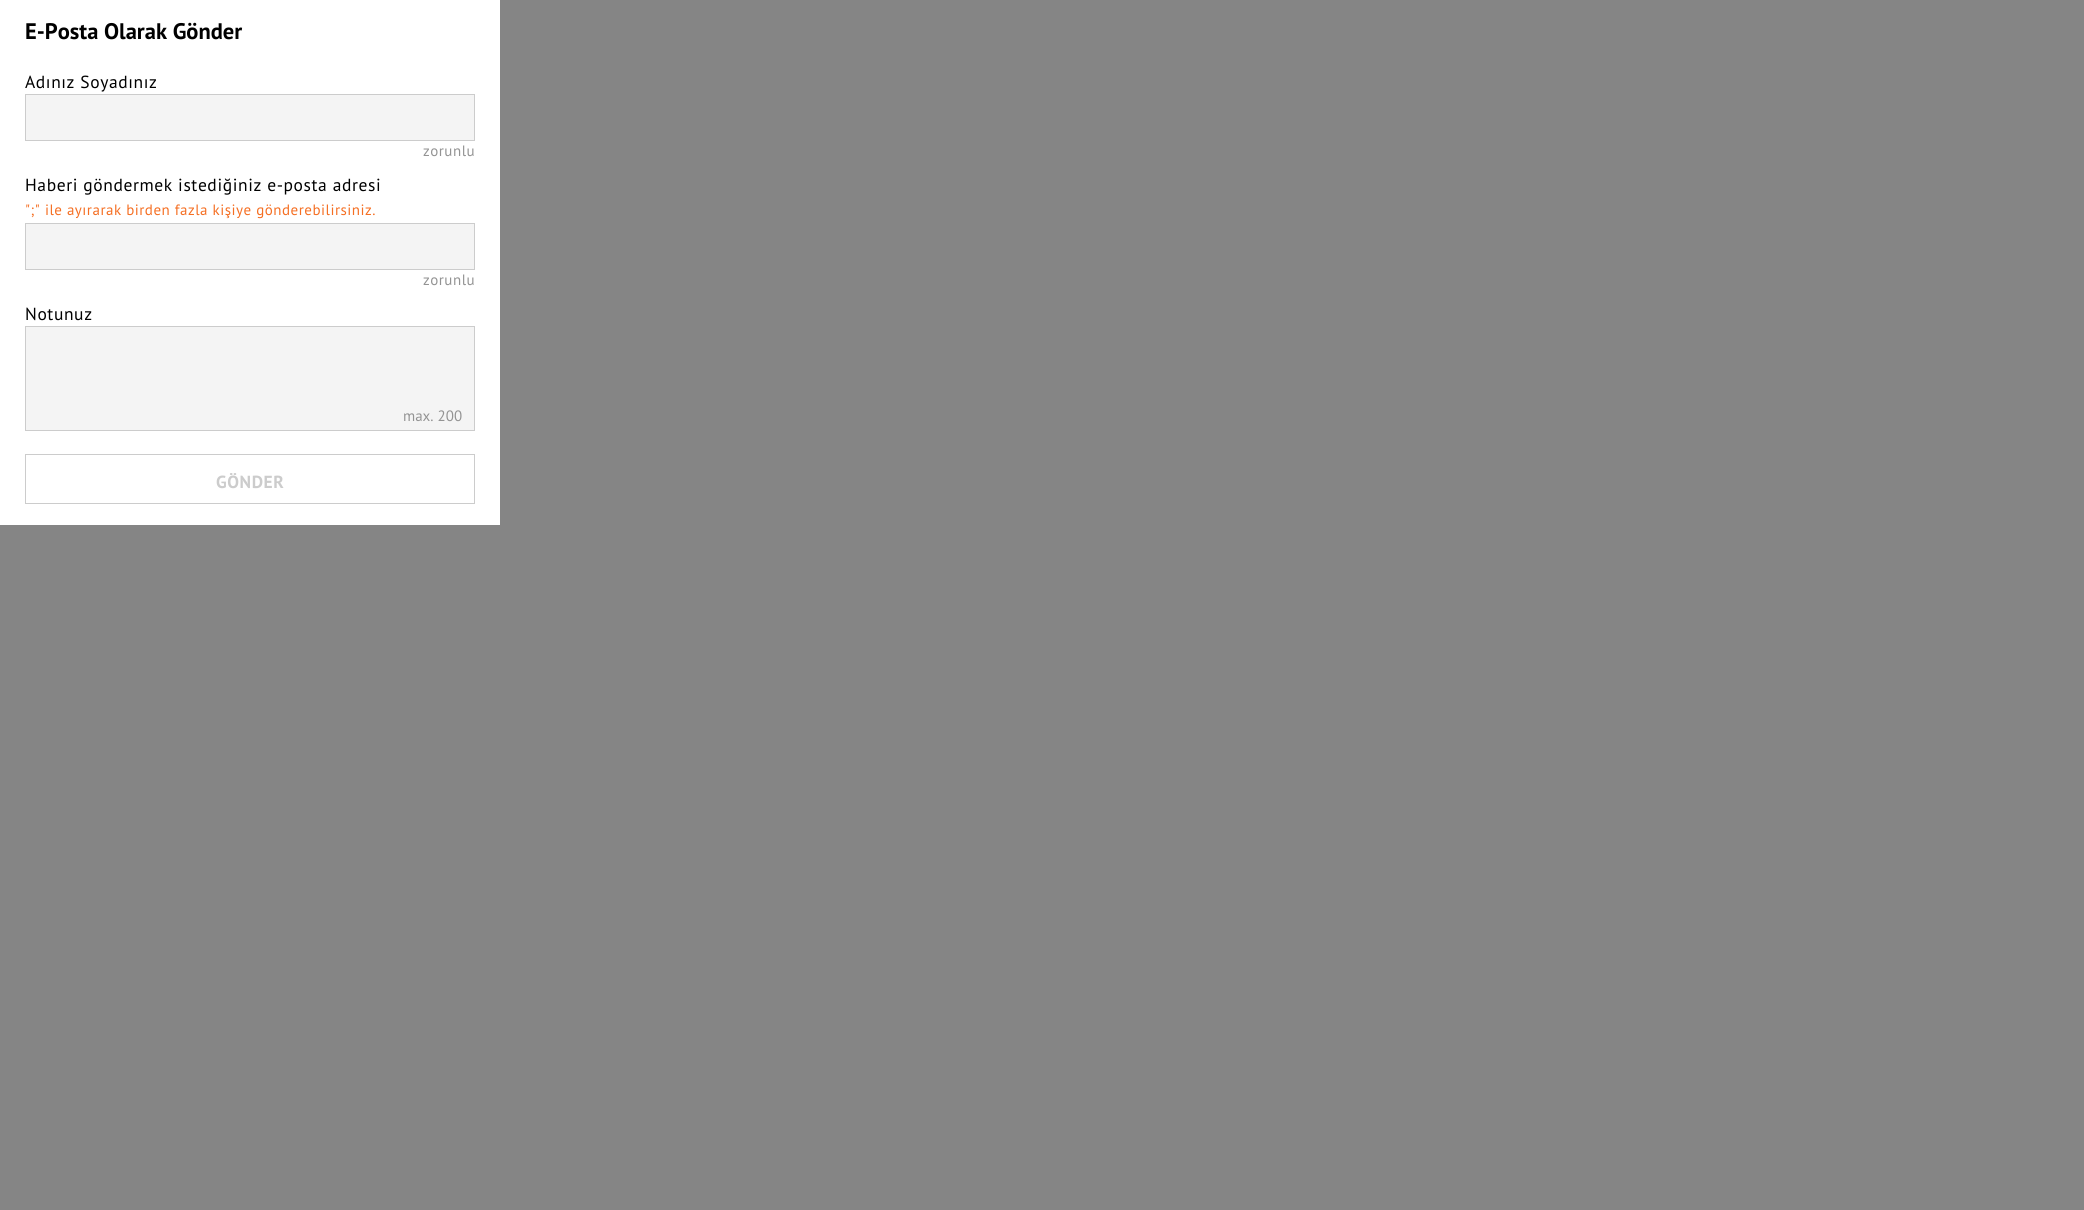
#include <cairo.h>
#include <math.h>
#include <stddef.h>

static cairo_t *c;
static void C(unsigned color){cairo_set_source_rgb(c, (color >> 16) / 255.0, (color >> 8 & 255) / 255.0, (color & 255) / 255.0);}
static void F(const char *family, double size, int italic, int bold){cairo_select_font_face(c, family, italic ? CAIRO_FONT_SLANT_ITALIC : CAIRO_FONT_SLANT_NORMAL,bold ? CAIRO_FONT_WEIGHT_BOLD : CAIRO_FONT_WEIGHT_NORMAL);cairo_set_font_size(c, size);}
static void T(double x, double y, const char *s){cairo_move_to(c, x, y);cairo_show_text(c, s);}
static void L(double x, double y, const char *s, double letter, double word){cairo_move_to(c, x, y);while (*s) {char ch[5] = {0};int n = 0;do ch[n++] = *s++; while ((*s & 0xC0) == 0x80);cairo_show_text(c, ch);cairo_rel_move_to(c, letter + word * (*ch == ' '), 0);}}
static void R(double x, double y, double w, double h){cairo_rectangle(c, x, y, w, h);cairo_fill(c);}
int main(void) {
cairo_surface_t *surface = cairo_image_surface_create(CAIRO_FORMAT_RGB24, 2084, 1210);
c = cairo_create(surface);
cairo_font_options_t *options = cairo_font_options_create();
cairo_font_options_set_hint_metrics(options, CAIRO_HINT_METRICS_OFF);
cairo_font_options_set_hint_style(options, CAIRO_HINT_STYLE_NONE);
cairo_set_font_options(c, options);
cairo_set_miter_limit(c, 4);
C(0x858585);
cairo_paint(c);
C(0xffffff);
R(0,0,500,525);
F("PT Sans",22.5,0,1);
C(0x000000);
T(25,39,"E-Posta Olarak Gönder");
F("PT Sans",17.5,0,0);
L(25,88,"Adınız Soyadınız",.6,0);
C(0xf4f4f4);
cairo_rectangle(c,25.5,94.5,449,46);
cairo_fill_preserve(c);
C(0xcccccc);
cairo_set_line_width(c,1);
cairo_stroke(c);
F("PT Sans",15,0,0);
C(0x939393);
L(423,156,"zorunlu",.5,0);
F("PT Sans",17.5,0,0);
C(0x000000);
L(25,191,"Haberi göndermek istediğiniz e-posta adresi",.6,0);
F("PT Sans",15,0,0);
C(0xf56f23);
L(25,215,"\";\" ile ayırarak birden fazla kişiye gönderebilirsiniz.",.5,0);
C(0xf4f4f4);
cairo_rectangle(c,25.5,223.5,449,46);
cairo_fill_preserve(c);
C(0xcccccc);
cairo_stroke(c);
C(0x939393);
L(423,285,"zorunlu",.5,0);
F("PT Sans",17.5,0,0);
C(0x000000);
L(25,320,"Notunuz",.6,0);
C(0xf4f4f4);
cairo_rectangle(c,25.5,326.5,449,104);
cairo_fill_preserve(c);
C(0xcccccc);
cairo_stroke(c);
F("PT Sans",15,0,0);
C(0x939393);
T(403,421,"max. 200");
cairo_rectangle(c,25.5,454.5,449,49);
C(0xcccccc);
cairo_stroke(c);
F("PT Sans",17.5,0,1);
L(216,488,"GÖNDER",.6,0);
cairo_surface_write_to_png(surface, "o.png");
cairo_font_options_destroy(options);
cairo_destroy(c);
cairo_surface_destroy(surface);
return 0;
}
